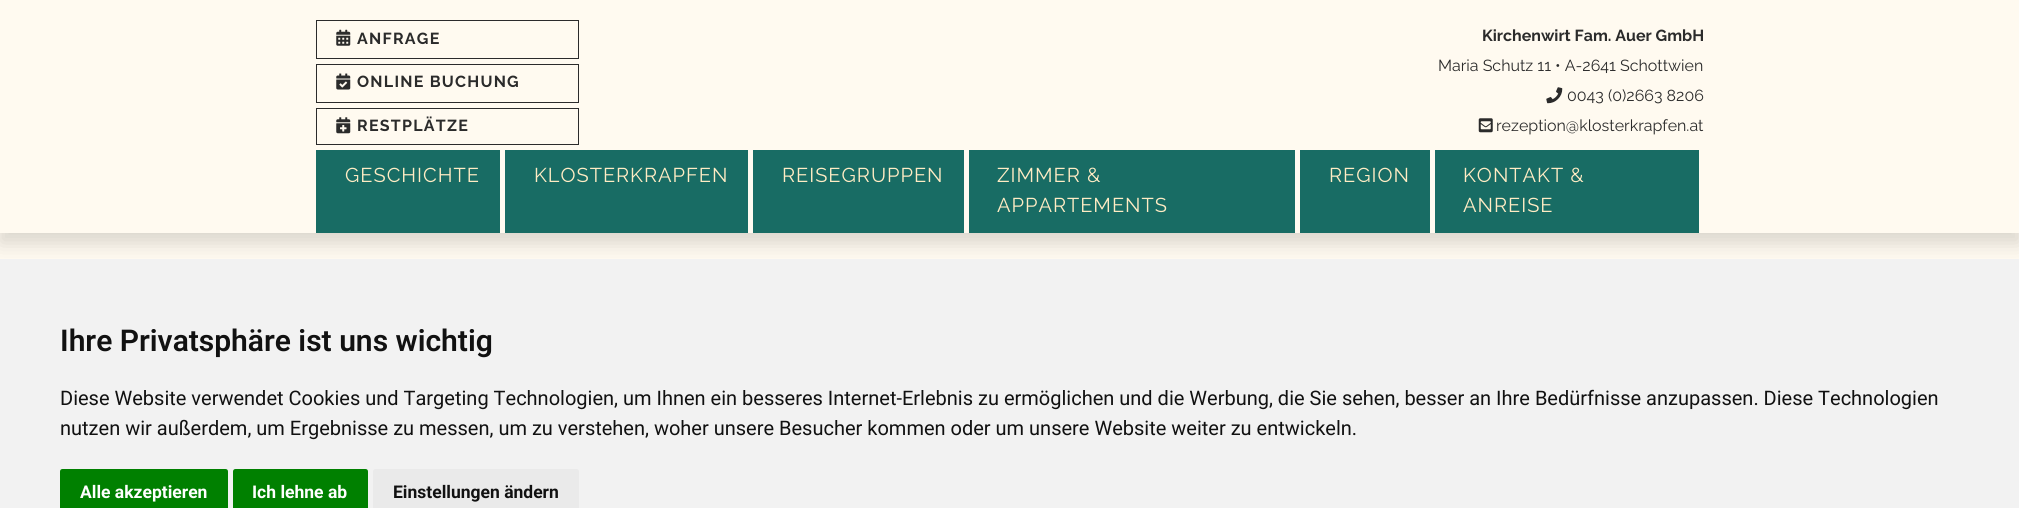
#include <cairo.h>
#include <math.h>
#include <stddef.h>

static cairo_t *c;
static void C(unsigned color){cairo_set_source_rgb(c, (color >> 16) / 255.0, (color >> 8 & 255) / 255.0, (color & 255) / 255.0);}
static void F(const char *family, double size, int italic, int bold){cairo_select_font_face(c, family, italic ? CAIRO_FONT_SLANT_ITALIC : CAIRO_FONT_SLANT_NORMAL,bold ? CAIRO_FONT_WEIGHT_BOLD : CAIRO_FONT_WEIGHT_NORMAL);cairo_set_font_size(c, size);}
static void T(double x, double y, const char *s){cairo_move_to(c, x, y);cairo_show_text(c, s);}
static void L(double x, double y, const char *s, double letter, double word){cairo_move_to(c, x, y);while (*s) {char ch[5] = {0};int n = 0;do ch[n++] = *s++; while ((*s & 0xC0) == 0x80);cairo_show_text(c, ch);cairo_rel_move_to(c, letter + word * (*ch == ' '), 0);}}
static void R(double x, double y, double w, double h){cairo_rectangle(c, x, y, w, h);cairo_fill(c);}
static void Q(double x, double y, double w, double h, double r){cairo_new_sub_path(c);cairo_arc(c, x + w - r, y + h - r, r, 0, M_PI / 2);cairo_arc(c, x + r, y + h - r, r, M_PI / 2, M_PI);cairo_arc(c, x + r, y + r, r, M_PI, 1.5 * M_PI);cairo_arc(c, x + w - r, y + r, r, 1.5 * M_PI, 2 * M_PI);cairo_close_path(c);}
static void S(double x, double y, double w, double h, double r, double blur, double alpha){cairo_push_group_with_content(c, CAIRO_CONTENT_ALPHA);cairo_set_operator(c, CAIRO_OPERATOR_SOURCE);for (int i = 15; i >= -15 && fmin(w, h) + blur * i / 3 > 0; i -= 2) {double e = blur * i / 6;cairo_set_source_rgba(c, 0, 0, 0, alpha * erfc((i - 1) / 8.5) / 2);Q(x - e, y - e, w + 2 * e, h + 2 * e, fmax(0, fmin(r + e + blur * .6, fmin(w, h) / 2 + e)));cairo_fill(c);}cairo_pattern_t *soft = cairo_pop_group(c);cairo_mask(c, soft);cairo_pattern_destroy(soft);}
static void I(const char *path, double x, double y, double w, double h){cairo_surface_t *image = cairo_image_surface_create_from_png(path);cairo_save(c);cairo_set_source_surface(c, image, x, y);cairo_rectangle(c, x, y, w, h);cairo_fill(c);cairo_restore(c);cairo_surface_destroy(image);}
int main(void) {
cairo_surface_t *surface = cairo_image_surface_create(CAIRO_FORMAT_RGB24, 2019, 508);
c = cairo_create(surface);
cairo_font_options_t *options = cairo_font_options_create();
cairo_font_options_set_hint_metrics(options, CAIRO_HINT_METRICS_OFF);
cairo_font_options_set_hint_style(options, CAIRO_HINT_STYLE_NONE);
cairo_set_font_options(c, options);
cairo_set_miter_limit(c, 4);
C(0xfffaf0);
cairo_paint(c);
C(0x000000);
S(0,10,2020,233,0,10,.15);
C(0xfffaf0);
R(0,0,2019,233);
cairo_rectangle(c,316.5,20.5,262,38);
C(0x2b2b2b);
cairo_set_line_width(c,1);
cairo_stroke(c);
I("1.png",336,29,15,17);
F("Raleway",16,0,1);
L(357,44,"ANFRAGE",1.25,0);
cairo_rectangle(c,316.5,64.5,262,38);
cairo_stroke(c);
I("2.png",336,73,15,17);
L(357,87,"ONLINE BUCHUNG",1.25,0);
cairo_rectangle(c,316.5,108.5,262,36);
cairo_stroke(c);
I("3.png",336,117,15,17);
L(357,131,"RESTPLÄTZE",1.25,0);
T(1482,41,"Kirchenwirt Fam. Auer GmbH");
F("Raleway",16,0,0);
T(1438,71,"Maria Schutz 11 • A-2641 Schottwien");
I("4.png",1546,87,17,17);
T(1567,101,"0043 (0)2663 8206");
I("5.png",1478,118,15,15);
T(1496,131,"rezeption@klosterkrapfen.at");
C(0x186c64);
R(316,150,184,83);
F("Raleway",20,0,0);
C(0xffecc4);
L(345,182,"GESCHICHTE",1,0);
C(0x186c64);
R(505,150,243,83);
C(0xffecc4);
L(534,182,"KLOSTERKRAPFEN",1,0);
C(0x186c64);
R(753,150,211,83);
C(0xffecc4);
L(782,182,"REISEGRUPPEN",1,0);
C(0x186c64);
R(969,150,326,83);
C(0xffecc4);
L(997,182,"ZIMMER &",1,0);
L(997,212,"APPARTEMENTS",1,0);
C(0x186c64);
R(1300,150,130,83);
C(0xffecc4);
L(1329,182,"REGION",1,0);
C(0x186c64);
R(1435,150,264,83);
C(0xffecc4);
L(1463,182,"KONTAKT &",1,0);
L(1463,212,"ANREISE",1,0);
C(0xf2f2f2);
R(0,259,2019,249);
F("Roboto SemiBold",30,0,0);
C(0x111111);
T(60,351,"Ihre Privatsphäre ist uns wichtig");
F("Roboto",20,0,0);
T(60,405,"Diese Website verwendet Cookies und Targeting Technologien, um Ihnen ein besseres Internet-Erlebnis zu ermöglichen und die Werbung, die Sie sehen, besser an Ihre Bedürfnisse anzupassen. Diese Technologien");
T(60,435,"nutzen wir außerdem, um Ergebnisse zu messen, um zu verstehen, woher unsere Besucher kommen oder um unsere Website weiter zu entwickeln.");
C(0x008000);
cairo_new_path(c);
cairo_move_to(c,62.5,469);
cairo_line_to(c,225.5,469);
cairo_curve_to(c,227,469,228,470,228,471.5);
cairo_line_to(c,228,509);
cairo_line_to(c,60,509);
cairo_line_to(c,60,471.5);
cairo_curve_to(c,60,470,61,469,62.5,469);
cairo_close_path(c);
cairo_fill(c);
F("Roboto",17.5,0,1);
C(0xffffff);
T(80,498,"Alle akzeptieren");
C(0x008000);
cairo_new_path(c);
cairo_move_to(c,235.5,469);
cairo_line_to(c,365.5,469);
cairo_curve_to(c,367,469,368,470,368,471.5);
cairo_line_to(c,368,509);
cairo_line_to(c,233,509);
cairo_line_to(c,233,471.5);
cairo_curve_to(c,233,470,234,469,235.5,469);
cairo_close_path(c);
cairo_fill(c);
C(0xffffff);
T(252,498,"Ich lehne ab");
C(0xeaeaea);
cairo_new_path(c);
cairo_move_to(c,375.5,469);
cairo_line_to(c,576.5,469);
cairo_curve_to(c,578,469,579,470,579,471.5);
cairo_line_to(c,579,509);
cairo_line_to(c,373,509);
cairo_line_to(c,373,471.5);
cairo_curve_to(c,373,470,374,469,375.5,469);
cairo_close_path(c);
cairo_fill(c);
C(0x111111);
T(393,498,"Einstellungen ändern");
cairo_surface_write_to_png(surface, "o.png");
cairo_font_options_destroy(options);
cairo_destroy(c);
cairo_surface_destroy(surface);
return 0;
}
